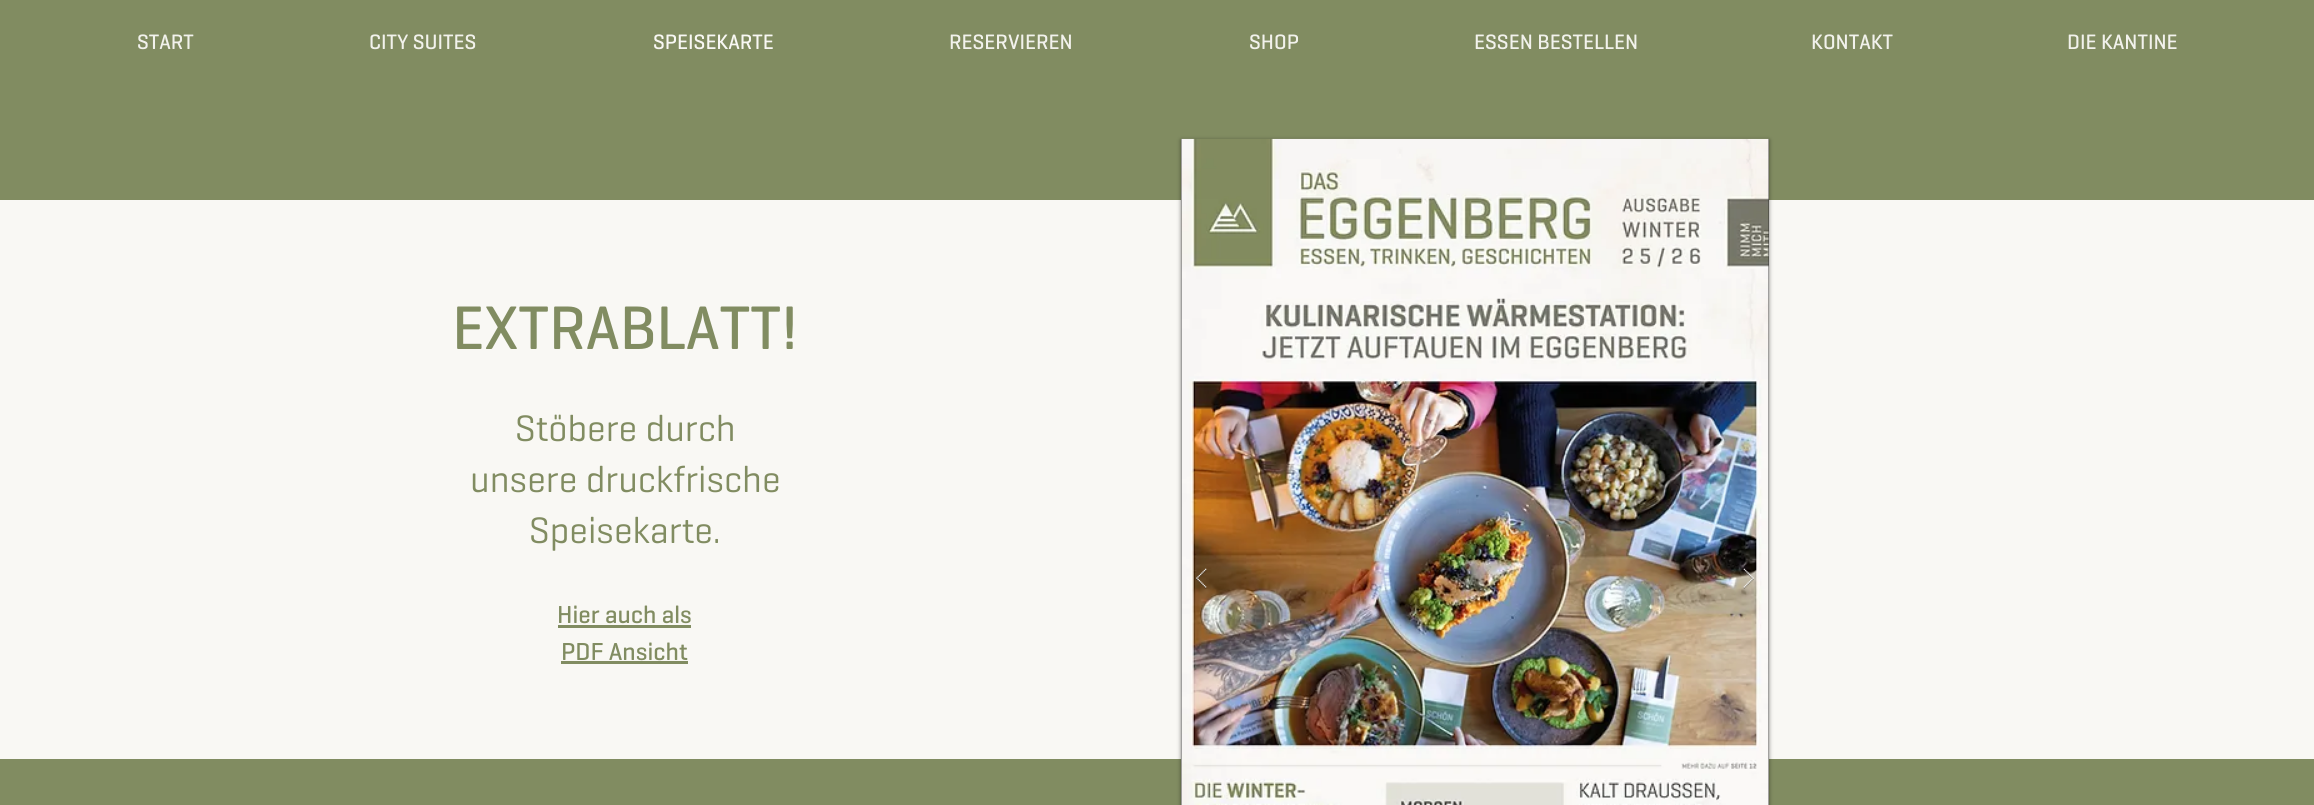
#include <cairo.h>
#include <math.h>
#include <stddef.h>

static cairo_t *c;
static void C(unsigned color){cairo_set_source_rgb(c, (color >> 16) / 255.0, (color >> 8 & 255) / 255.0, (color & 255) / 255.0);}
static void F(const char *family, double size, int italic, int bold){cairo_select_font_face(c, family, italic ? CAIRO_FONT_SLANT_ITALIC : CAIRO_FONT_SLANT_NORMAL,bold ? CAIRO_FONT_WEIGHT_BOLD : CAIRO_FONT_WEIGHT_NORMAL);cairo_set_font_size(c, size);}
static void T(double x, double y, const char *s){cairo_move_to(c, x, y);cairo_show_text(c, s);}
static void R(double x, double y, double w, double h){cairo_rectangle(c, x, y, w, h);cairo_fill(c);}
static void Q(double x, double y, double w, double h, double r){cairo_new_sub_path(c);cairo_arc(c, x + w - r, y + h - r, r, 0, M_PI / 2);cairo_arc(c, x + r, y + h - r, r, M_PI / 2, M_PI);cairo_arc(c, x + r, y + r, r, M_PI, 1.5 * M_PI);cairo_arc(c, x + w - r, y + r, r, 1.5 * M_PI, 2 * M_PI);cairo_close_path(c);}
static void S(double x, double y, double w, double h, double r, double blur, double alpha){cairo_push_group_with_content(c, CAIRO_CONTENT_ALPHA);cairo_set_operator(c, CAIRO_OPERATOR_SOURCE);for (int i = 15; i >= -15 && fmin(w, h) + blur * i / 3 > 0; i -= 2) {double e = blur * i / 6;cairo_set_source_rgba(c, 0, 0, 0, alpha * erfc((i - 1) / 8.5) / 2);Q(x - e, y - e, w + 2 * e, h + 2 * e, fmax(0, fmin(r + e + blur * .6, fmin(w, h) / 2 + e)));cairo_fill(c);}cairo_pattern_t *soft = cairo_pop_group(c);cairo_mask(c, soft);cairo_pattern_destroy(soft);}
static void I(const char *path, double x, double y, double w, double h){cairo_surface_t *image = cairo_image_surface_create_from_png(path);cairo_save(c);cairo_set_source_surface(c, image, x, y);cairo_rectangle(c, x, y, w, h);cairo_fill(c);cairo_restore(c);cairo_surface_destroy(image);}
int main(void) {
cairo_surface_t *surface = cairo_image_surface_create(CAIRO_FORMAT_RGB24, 2314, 805);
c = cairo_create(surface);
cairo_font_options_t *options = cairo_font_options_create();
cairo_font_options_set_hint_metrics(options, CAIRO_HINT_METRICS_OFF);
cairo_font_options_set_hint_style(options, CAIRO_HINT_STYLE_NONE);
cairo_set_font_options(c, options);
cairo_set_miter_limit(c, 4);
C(0x818c61);
cairo_paint(c);
F("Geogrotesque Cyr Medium",21.25,0,0);
C(0xf2f2ec);
T(137,49,"START");
T(369,49,"CITY SUITES");
C(0xf9f8f4);
T(653,49,"SPEISEKARTE");
C(0xf2f2ec);
T(949,49,"RESERVIEREN");
T(1249,49,"SHOP");
T(1474,49,"ESSEN BESTELLEN");
T(1811,49,"KONTAKT");
T(2067,49,"DIE KANTINE");
C(0xf9f8f4);
R(0,200,2314,559);
F("Geogrotesque Cyr Medium",62.5,0,0);
C(0x818c61);
T(452,349,"EXTRABLATT!");
F("Geogrotesque Cyr",37.5,0,0);
T(515,441,"Stöbere durch");
T(470,492,"unsere druckfrische");
T(529,543,"Speisekarte.");
F("Geogrotesque Cyr Medium",25,0,0);
T(557,623,"Hier auch als");
R(558,625,133,3);
T(561,660,"PDF Ansicht");
R(561,661,127,3);
C(0x000000);
S(1181,140,588,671,0,2,.5);
C(0x2f2e2e);
R(1181,139,588,666);
I("1.png",1181,138,588,667);
I("2.png",1196,568,11,21);
I("3.png",1743,568,11,21);
cairo_surface_write_to_png(surface, "o.png");
cairo_font_options_destroy(options);
cairo_destroy(c);
cairo_surface_destroy(surface);
return 0;
}
